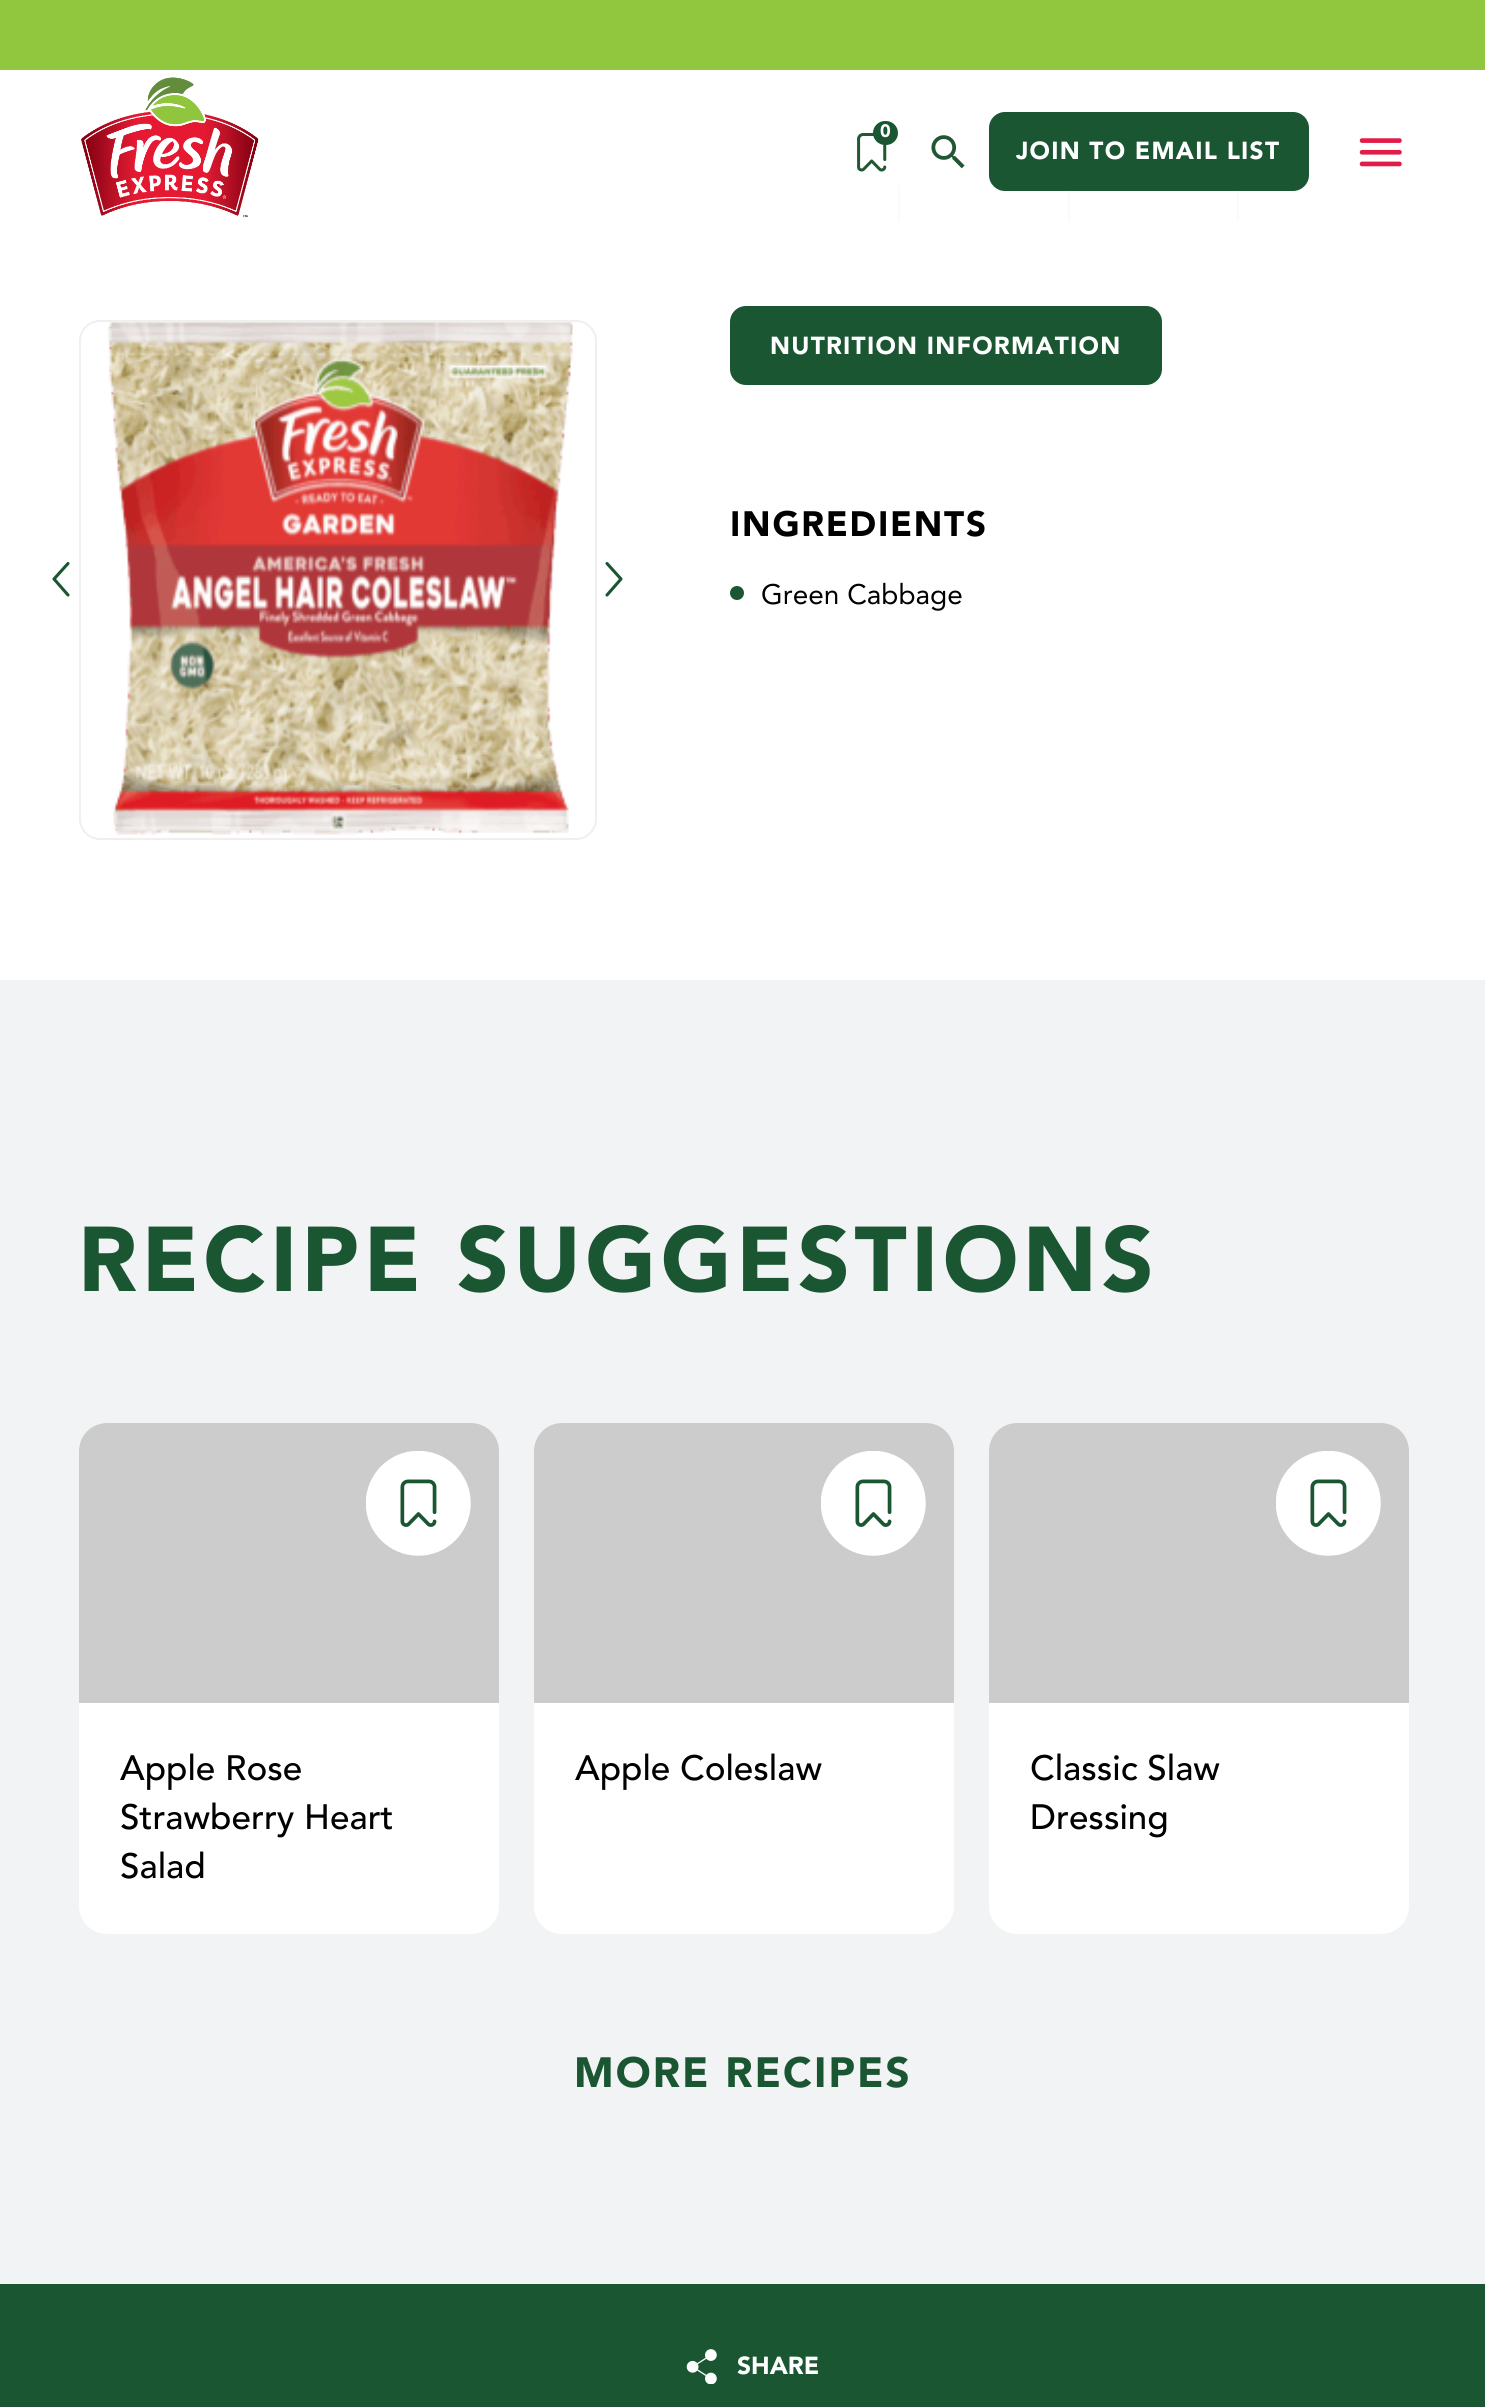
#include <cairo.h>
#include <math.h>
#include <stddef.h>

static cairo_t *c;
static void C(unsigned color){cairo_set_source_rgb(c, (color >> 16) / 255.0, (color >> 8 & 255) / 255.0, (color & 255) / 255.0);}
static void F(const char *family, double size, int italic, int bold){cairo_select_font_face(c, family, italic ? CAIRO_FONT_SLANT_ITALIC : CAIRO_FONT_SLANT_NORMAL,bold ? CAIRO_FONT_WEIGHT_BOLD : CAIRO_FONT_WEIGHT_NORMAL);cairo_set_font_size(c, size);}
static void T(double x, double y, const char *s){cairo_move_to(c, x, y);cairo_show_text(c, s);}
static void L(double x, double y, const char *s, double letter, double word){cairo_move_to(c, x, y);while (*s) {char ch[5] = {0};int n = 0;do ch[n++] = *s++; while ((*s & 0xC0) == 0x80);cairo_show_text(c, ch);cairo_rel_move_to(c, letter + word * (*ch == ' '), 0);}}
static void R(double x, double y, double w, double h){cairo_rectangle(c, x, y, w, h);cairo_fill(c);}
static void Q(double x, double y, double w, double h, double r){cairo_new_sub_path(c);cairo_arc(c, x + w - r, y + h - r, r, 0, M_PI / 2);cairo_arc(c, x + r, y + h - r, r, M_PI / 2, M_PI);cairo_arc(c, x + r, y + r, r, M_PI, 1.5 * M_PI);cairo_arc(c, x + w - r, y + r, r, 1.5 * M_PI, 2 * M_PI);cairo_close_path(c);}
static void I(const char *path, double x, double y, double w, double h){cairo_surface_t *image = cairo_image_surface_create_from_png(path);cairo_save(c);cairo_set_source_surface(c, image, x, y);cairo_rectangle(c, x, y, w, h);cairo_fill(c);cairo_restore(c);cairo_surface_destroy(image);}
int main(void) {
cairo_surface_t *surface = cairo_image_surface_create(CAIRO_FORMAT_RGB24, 1485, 2407);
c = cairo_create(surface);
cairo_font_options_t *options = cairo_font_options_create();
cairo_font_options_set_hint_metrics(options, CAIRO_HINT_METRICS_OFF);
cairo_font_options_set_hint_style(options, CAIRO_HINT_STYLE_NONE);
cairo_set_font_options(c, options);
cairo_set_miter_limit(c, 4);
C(0xffffff);
cairo_paint(c);
C(0x90c73e);
R(0,0,1485,70);
C(0xd2d5d4);
R(898,186,2,35);
R(1068,186,2,35);
R(1237,186,2,35);
cairo_set_source_rgba(c,1,1,1,0.9);
R(898,186,341,35);
I("1.png",81,77,178,141);
I("2.png",857,133,30,39);
C(0x1b5633);
Q(873,121,25,24,12);
cairo_fill(c);
F("Avenir Black",18,0,0);
C(0xffffff);
T(880,137,"0");
I("3.png",931,135,34,34);
C(0x1b5633);
Q(989,112,320,79,16);
cairo_fill(c);
F("Avenir Black",24.5,0,0);
C(0xffffff);
L(1016,159,"JOIN TO EMAIL LIST",1.25,0);
I("4.png",1359,138,43,29);
cairo_new_path(c);
cairo_move_to(c,68,595);
cairo_line_to(c,54,579);
cairo_line_to(c,68,563.5);
C(0x1b5633);
cairo_set_line_width(c,3.1);
cairo_set_line_cap(c,CAIRO_LINE_CAP_ROUND);
cairo_set_line_join(c,CAIRO_LINE_JOIN_ROUND);
cairo_stroke(c);
Q(80,321,516,518,20);
C(0xefefef);
cairo_set_line_width(c,2);
cairo_set_line_cap(c,CAIRO_LINE_CAP_BUTT);
cairo_set_line_join(c,CAIRO_LINE_JOIN_MITER);
cairo_stroke(c);
I("5.png",107,322,466,513);
cairo_new_path(c);
cairo_move_to(c,607,563.5);
cairo_line_to(c,621,579);
cairo_line_to(c,607,595);
C(0x1b5633);
cairo_set_line_width(c,3.1);
cairo_set_line_cap(c,CAIRO_LINE_CAP_ROUND);
cairo_set_line_join(c,CAIRO_LINE_JOIN_ROUND);
cairo_stroke(c);
Q(730,306,432,79,16);
cairo_fill(c);
C(0xffffff);
L(770,354,"NUTRITION INFORMATION",1.25,0);
F("Avenir Black",35,0,0);
C(0x000000);
L(730,536,"INGREDIENTS",1.75,0);
C(0x1b5633);
cairo_new_path(c);
cairo_arc(c,737,593,7,0,2 * M_PI);
cairo_fill(c);
F("Avenir",28,0,0);
C(0x000000);
T(761,604,"Green Cabbage");
C(0xf2f3f4);
R(0,980,1485,1304);
F("Avenir Black",91,0,0);
C(0x1b5633);
L(78,1291,"RECIPE SUGGESTIONS",4.5,0);
C(0xffffff);
Q(79,1423,420,511,28);
cairo_fill(c);
C(0xcccccc);
cairo_new_path(c);
cairo_move_to(c,107,1423);
cairo_line_to(c,471,1423);
cairo_curve_to(c,486.5,1423,499,1435.5,499,1451);
cairo_line_to(c,499,1703);
cairo_line_to(c,79,1703);
cairo_line_to(c,79,1451);
cairo_curve_to(c,79,1435.5,91.5,1423,107,1423);
cairo_close_path(c);
cairo_fill(c);
I("6.png",366,1451,105,105);
F("Avenir Medium",35,0,0);
C(0x000000);
T(120,1780,"Apple Rose");
T(120,1829,"Strawberry Heart");
T(120,1878,"Salad");
C(0xffffff);
Q(534,1423,420,511,28);
cairo_fill(c);
C(0xcccccc);
cairo_new_path(c);
cairo_move_to(c,562,1423);
cairo_line_to(c,926,1423);
cairo_curve_to(c,941.5,1423,954,1435.5,954,1451);
cairo_line_to(c,954,1703);
cairo_line_to(c,534,1703);
cairo_line_to(c,534,1451);
cairo_curve_to(c,534,1435.5,546.5,1423,562,1423);
cairo_close_path(c);
cairo_fill(c);
I("6.png",821,1451,105,105);
C(0x000000);
T(575,1780,"Apple Coleslaw");
C(0xffffff);
Q(989,1423,420,511,28);
cairo_fill(c);
C(0xcccccc);
cairo_new_path(c);
cairo_move_to(c,1017,1423);
cairo_line_to(c,1381,1423);
cairo_curve_to(c,1396.5,1423,1409,1435.5,1409,1451);
cairo_line_to(c,1409,1703);
cairo_line_to(c,989,1703);
cairo_line_to(c,989,1451);
cairo_curve_to(c,989,1435.5,1001.5,1423,1017,1423);
cairo_close_path(c);
cairo_fill(c);
I("6.png",1276,1451,105,105);
C(0x000000);
T(1030,1780,"Classic Slaw");
T(1030,1829,"Dressing");
F("Avenir Black",42,0,0);
C(0x1b5633);
L(574,2087,"MORE RECIPES",2.1,0);
R(0,2284,1485,61);
cairo_new_path(c);
cairo_move_to(c,21,2324);
cairo_line_to(c,1465,2324);
cairo_curve_to(c,1476.5,2324,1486,2333.5,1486,2345);
cairo_line_to(c,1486,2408);
cairo_line_to(c,0,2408);
cairo_line_to(c,0,2345);
cairo_curve_to(c,0,2333.5,9.5,2324,21,2324);
cairo_close_path(c);
cairo_fill(c);
I("7.png",686,2349,31,35);
F("Avenir Black",24.5,0,0);
C(0xffffff);
T(737,2374,"SHARE");
cairo_surface_write_to_png(surface, "o.png");
cairo_font_options_destroy(options);
cairo_destroy(c);
cairo_surface_destroy(surface);
return 0;
}
